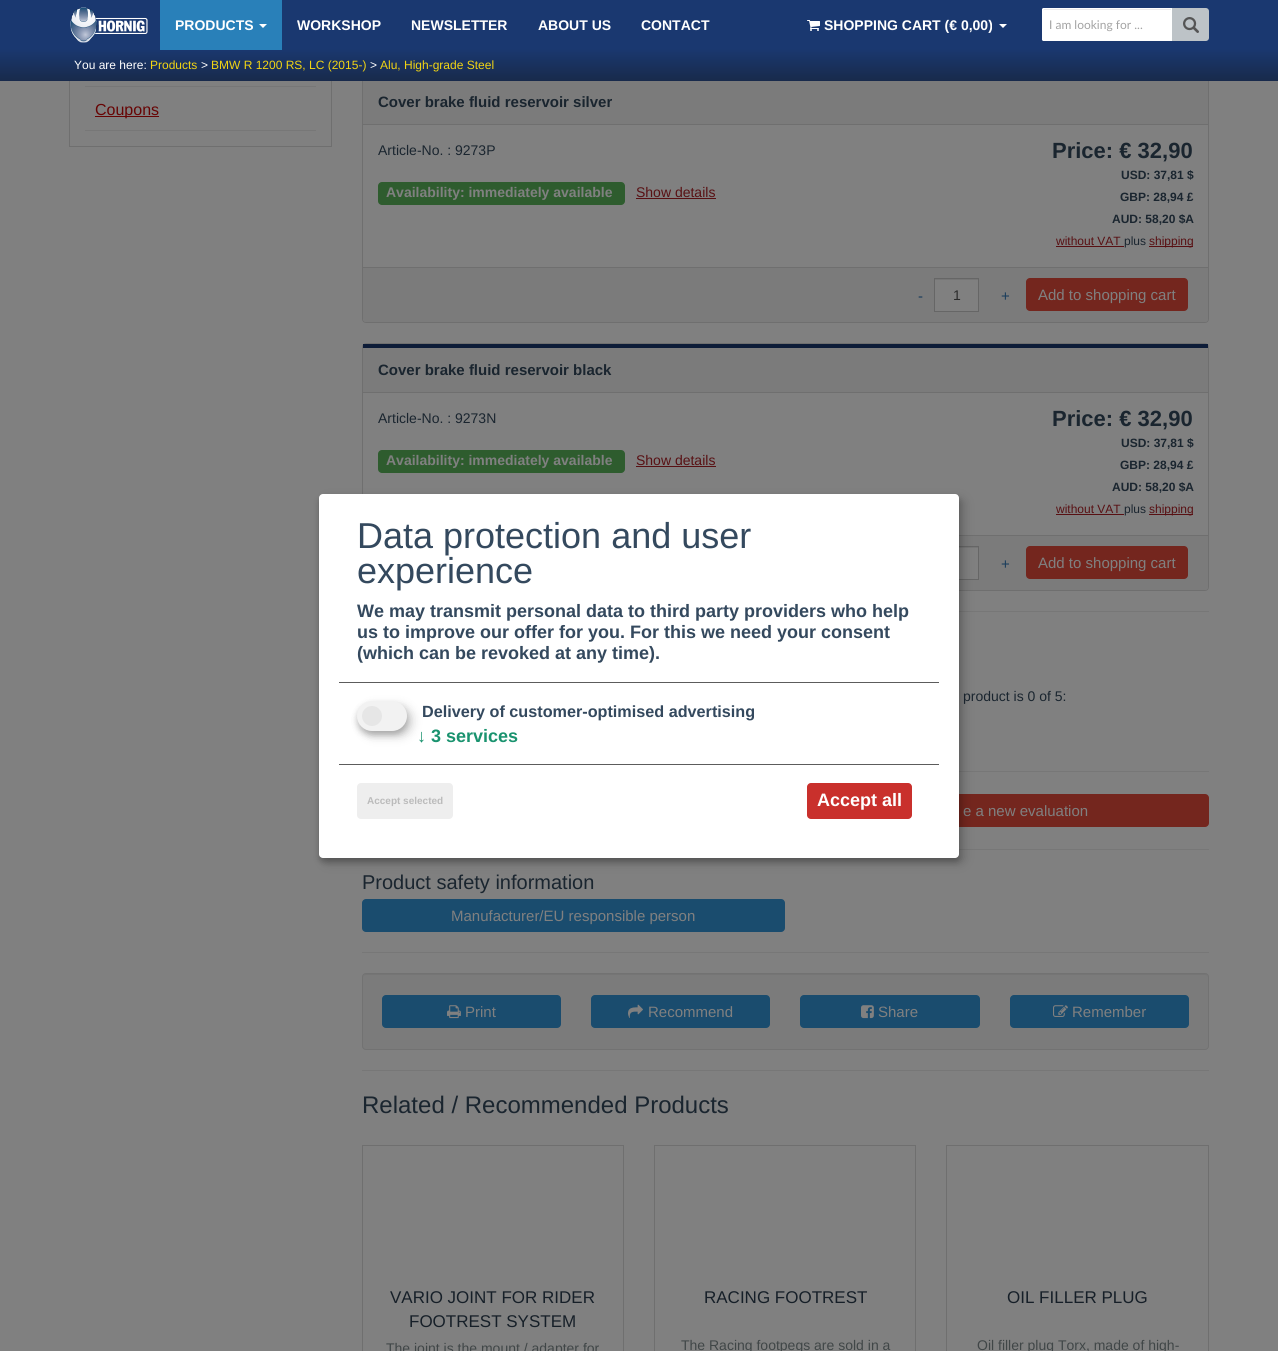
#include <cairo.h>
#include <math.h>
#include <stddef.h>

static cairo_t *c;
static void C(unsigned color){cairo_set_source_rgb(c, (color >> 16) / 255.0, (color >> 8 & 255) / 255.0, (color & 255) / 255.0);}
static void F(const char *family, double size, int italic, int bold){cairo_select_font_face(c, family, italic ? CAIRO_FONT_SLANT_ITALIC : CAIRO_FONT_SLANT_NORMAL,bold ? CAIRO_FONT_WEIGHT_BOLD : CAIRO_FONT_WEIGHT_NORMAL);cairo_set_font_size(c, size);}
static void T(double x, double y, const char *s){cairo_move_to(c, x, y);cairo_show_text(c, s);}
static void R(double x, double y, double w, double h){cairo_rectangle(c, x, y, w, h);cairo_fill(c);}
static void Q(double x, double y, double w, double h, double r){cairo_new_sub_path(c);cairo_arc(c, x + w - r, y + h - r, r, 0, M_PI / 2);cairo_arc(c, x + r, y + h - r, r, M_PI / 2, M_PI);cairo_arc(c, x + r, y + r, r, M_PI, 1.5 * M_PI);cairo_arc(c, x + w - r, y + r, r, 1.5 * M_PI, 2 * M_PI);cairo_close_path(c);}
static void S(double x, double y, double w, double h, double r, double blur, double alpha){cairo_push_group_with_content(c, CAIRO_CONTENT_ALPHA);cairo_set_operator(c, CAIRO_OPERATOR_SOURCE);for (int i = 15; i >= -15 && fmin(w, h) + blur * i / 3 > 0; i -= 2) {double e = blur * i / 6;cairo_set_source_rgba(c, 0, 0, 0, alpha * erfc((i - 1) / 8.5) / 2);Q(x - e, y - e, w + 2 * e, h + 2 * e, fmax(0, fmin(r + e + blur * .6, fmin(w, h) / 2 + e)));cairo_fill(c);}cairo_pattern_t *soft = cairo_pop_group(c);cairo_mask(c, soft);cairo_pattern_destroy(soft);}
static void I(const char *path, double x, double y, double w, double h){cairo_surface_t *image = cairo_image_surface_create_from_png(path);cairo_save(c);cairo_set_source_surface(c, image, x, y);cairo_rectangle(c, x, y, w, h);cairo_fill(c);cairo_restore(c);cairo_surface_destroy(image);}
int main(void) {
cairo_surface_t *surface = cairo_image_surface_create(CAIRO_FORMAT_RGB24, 1278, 1351);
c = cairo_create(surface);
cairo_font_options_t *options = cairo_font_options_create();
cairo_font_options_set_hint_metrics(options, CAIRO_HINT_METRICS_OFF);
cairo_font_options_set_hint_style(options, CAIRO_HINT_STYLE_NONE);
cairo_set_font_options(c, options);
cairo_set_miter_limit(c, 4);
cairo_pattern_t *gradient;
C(0x808080);
cairo_paint(c);
cairo_rectangle(c,69.5,-.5,262,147);
C(0x6f6f6f);
cairo_set_line_width(c,1);
cairo_stroke(c);
Q(362.5,75.5,846,247,3.5);
cairo_stroke(c);
gradient = cairo_pattern_create_linear(639,0,639,81);
cairo_pattern_add_color_stop_rgba(gradient,.6,0.102,0.22,0.439,1);
cairo_pattern_add_color_stop_rgba(gradient,1,0.094,0.165,0.294,1);
cairo_set_source(c,gradient);
cairo_pattern_destroy(gradient);
R(0,0,1278,81);
I("1.png",70,7,78,36);
C(0x2980b9);
R(160,0,122,50);
F("Liberation Sans",14,0,1);
C(0xffffff);
T(175,30,"PRODUCTS");
cairo_new_path(c);
cairo_move_to(c,259,24);
cairo_line_to(c,267,24);
cairo_line_to(c,263,28);
cairo_close_path(c);
cairo_fill(c);
T(297,30,"WORKSHOP");
T(411,30,"NEWSLETTER");
T(538,30,"ABOUT US");
T(641,30,"CONTACT");
I("2.png",807,20,13,11);
T(824,30,"SHOPPING CART (€ 0,00)");
cairo_new_path(c);
cairo_move_to(c,999,24);
cairo_line_to(c,1007,24);
cairo_line_to(c,1003,28);
cairo_close_path(c);
cairo_fill(c);
cairo_new_path(c);
cairo_move_to(c,1044,8);
cairo_line_to(c,1172,8);
cairo_line_to(c,1172,41);
cairo_line_to(c,1044,41);
cairo_curve_to(c,1043,41,1042,40,1042,39);
cairo_line_to(c,1042,10);
cairo_curve_to(c,1042,9,1043,8,1044,8);
cairo_close_path(c);
cairo_fill(c);
C(0xececec);
cairo_new_path(c);
cairo_move_to(c,1044,10);
cairo_line_to(c,1171,10);
cairo_line_to(c,1171,9);
cairo_line_to(c,1044,9);
cairo_line_to(c,1043,11);
cairo_curve_to(c,1043,10,1043,10,1044,10);
cairo_close_path(c);
cairo_fill(c);
cairo_new_path(c);
cairo_move_to(c,1044,8.5);
cairo_line_to(c,1171.5,8.5);
cairo_line_to(c,1171.5,40.5);
cairo_line_to(c,1044,40.5);
cairo_curve_to(c,1043,40.5,1042.5,40,1042.5,39);
cairo_line_to(c,1042.5,10);
cairo_curve_to(c,1042.5,9,1043,8.5,1044,8.5);
cairo_close_path(c);
C(0xffffff);
cairo_stroke(c);
F("Lato",12,0,0);
C(0xa3a3a3);
T(1049,29,"I am looking for ...");
C(0xbdc3c7);
cairo_new_path(c);
cairo_move_to(c,1172,8);
cairo_line_to(c,1206,8);
cairo_curve_to(c,1207.5,8,1209,9.5,1209,11);
cairo_line_to(c,1209,38);
cairo_curve_to(c,1209,39.5,1207.5,41,1206,41);
cairo_line_to(c,1172,41);
cairo_close_path(c);
cairo_fill(c);
I("3.png",1183,17,16,16);
F("Liberation Sans",12,0,0);
C(0xffffff);
T(74,69,"You are here:");
C(0xf2d513);
T(150,69,"Products");
C(0xffffff);
T(201,69,">");
C(0xf2d513);
T(211,69,"BMW R 1200 RS, LC (2015-)");
C(0xffffff);
T(370,69,">");
C(0xf2d513);
T(380,69,"Alu, High-grade Steel");
C(0x777777);
R(85,86,231,1);
R(85,130,231,1);
C(0x670404);
R(95,116,64,1);
F("Liberation Sans",16,0,0);
T(95,115,"Coupons");
C(0x7b7b7b);
R(363,81,845,43);
C(0x6f6f6f);
R(363,124,845,1);
F("Liberation Sans",15,0,1);
C(0x1a252f);
T(378,107,"Cover brake fluid reservoir silver");
F("Liberation Sans",14,0,0);
T(378,155,"Article-No. : 9273P");
C(0x2e5c2e);
Q(378,182,247,23,4);
cairo_fill(c);
F("Liberation Sans",14,0,1);
C(0x808080);
T(386,197,"Availability: immediately available");
F("Liberation Sans",14,0,0);
C(0x581013);
T(636,197,"Show details");
R(636,198,80,1);
F("Liberation Sans",22,0,1);
C(0x1a252f);
T(1052,158,"Price: € 32,90");
F("Liberation Sans",12,0,1);
T(1121,179,"USD: 37,81 $");
T(1120,201,"GBP: 28,94 £");
T(1112,223,"AUD: 58,20 $A");
F("Liberation Sans",12,0,0);
C(0x581013);
T(1056,245,"without VAT");
C(0x1a252f);
T(1124,245,"plus");
C(0x581013);
R(1056,246,68,1);
R(1149,246,44,1);
T(1149,245,"shipping");
C(0x7b7b7b);
cairo_new_path(c);
cairo_move_to(c,363,267);
cairo_line_to(c,1208,267);
cairo_line_to(c,1208,319);
cairo_curve_to(c,1208,320.5,1206.5,322,1205,322);
cairo_line_to(c,366,322);
cairo_curve_to(c,364.5,322,363,320.5,363,319);
cairo_close_path(c);
cairo_fill(c);
C(0x6f6f6f);
R(363,267,845,1);
F("Liberation Sans",15,0,0);
C(0x1a3d5c);
T(918,301,"-");
C(0x808080);
R(935,280,43,31);
C(0x767676);
R(935,279,43,1);
cairo_rectangle(c,934.5,278.5,44,33);
C(0x666666);
cairo_stroke(c);
F("Liberation Sans",14,0,0);
C(0x2b2b2b);
T(953,300,"1");
F("Liberation Sans",15,0,0);
C(0x1a3d5c);
T(1001,301,"+");
C(0x74261e);
Q(1026,278,162,33,4);
cairo_fill(c);
C(0x808080);
T(1038,300,"Add to shopping cart");
Q(362.5,343.5,846,247,3.5);
C(0x6f6f6f);
cairo_stroke(c);
C(0x7b7b7b);
R(363,348,845,44);
C(0x0d1c38);
R(363,344,845,4);
C(0x6f6f6f);
R(363,392,845,1);
F("Liberation Sans",15,0,1);
C(0x1a252f);
T(378,375,"Cover brake fluid reservoir black");
F("Liberation Sans",14,0,0);
T(378,423,"Article-No. : 9273N");
C(0x2e5c2e);
Q(378,450,247,23,4);
cairo_fill(c);
F("Liberation Sans",14,0,1);
C(0x808080);
T(386,465,"Availability: immediately available");
F("Liberation Sans",14,0,0);
C(0x581013);
T(636,465,"Show details");
R(636,466,80,1);
F("Liberation Sans",22,0,1);
C(0x1a252f);
T(1052,426,"Price: € 32,90");
F("Liberation Sans",12,0,1);
T(1121,447,"USD: 37,81 $");
T(1120,469,"GBP: 28,94 £");
T(1112,491,"AUD: 58,20 $A");
F("Liberation Sans",12,0,0);
C(0x581013);
T(1056,513,"without VAT");
C(0x1a252f);
T(1124,513,"plus");
C(0x581013);
R(1056,514,68,1);
R(1149,514,44,1);
T(1149,513,"shipping");
C(0x7b7b7b);
cairo_new_path(c);
cairo_move_to(c,363,535);
cairo_line_to(c,1208,535);
cairo_line_to(c,1208,587);
cairo_curve_to(c,1208,588.5,1206.5,590,1205,590);
cairo_line_to(c,366,590);
cairo_curve_to(c,364.5,590,363,588.5,363,587);
cairo_close_path(c);
cairo_fill(c);
C(0x6f6f6f);
R(959,535,249,1);
C(0x808080);
R(959,548,19,31);
C(0x767676);
R(959,547,19,1);
cairo_rectangle(c,934.5,546.5,44,33);
C(0x666666);
cairo_stroke(c);
F("Liberation Sans",15,0,0);
C(0x1a3d5c);
T(1001,569,"+");
C(0x74261e);
Q(1026,546,162,33,4);
cairo_fill(c);
C(0x808080);
T(1038,568,"Add to shopping cart");
C(0x777777);
R(959,611,250,1);
F("Liberation Sans",14,0,0);
C(0x1a252f);
T(963,701,"product is 0 of 5:");
C(0x777777);
R(959,771,250,1);
C(0x74261e);
Q(800,794,409,33,4);
cairo_fill(c);
F("Liberation Sans",15,0,0);
C(0x808080);
T(963,816,"e a new evaluation");
C(0x777777);
R(959,849,250,1);
F("Liberation Sans",20,0,0);
C(0x1a252f);
T(362,889,"Product safety information");
C(0x1a4c6e);
Q(362,899,423,33,4);
cairo_fill(c);
F("Liberation Sans",15,0,0);
C(0x808080);
T(451,921,"Manufacturer/EU responsible person");
C(0x777777);
R(362,952,847,1);
C(0x7b7b7b);
Q(362,973,847,77,4);
cairo_fill(c);
C(0x757575);
cairo_new_path(c);
cairo_move_to(c,366,975);
cairo_line_to(c,1205,975);
cairo_curve_to(c,1207,975,1208,976,1208,978);
cairo_curve_to(c,1208,976,1207,974,1205,974);
cairo_line_to(c,366,974);
cairo_curve_to(c,364,974,363,976,363,978);
cairo_curve_to(c,363,976,364,975,366,975);
cairo_close_path(c);
cairo_fill(c);
Q(362.5,973.5,846,76,3.5);
C(0x727272);
cairo_stroke(c);
C(0x1a4c6e);
Q(382,995,179,33,4);
cairo_fill(c);
I("4.png",447,1005,14,14);
C(0x808080);
T(465,1017,"Print");
C(0x1a4c6e);
Q(591,995,179,33,4);
cairo_fill(c);
I("5.png",628,1004,15,14);
C(0x808080);
T(648,1017,"Recommend");
C(0x1a4c6e);
Q(800,995,180,33,4);
cairo_fill(c);
I("6.png",861,1005,13,14);
C(0x808080);
T(878,1017,"Share");
C(0x1a4c6e);
Q(1010,995,179,33,4);
cairo_fill(c);
I("7.png",1053,1005,15,12);
C(0x808080);
T(1072,1017,"Remember");
C(0x777777);
R(362,1070,847,1);
F("Liberation Sans",24,0,0);
C(0x1a252f);
T(362,1113,"Related / Recommended Products");
cairo_rectangle(c,362.5,1145.5,261,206);
C(0x6f6f6f);
cairo_stroke(c);
F("Liberation Sans",17,0,0);
C(0x161f28);
T(390,1303,"VARIO JOINT FOR RIDER");
T(409,1327,"FOOTREST SYSTEM");
F("Liberation Sans",14,0,0);
C(0x404647);
T(386,1353,"The joint is the mount / adapter for");
cairo_rectangle(c,654.5,1145.5,261,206);
C(0x6f6f6f);
cairo_stroke(c);
F("Liberation Sans",17,0,0);
C(0x161f28);
T(704,1303,"RACING FOOTREST");
F("Liberation Sans",14,0,0);
C(0x404647);
T(681,1350,"The Racing footpegs are sold in a");
cairo_rectangle(c,946.5,1145.5,262,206);
C(0x6f6f6f);
cairo_stroke(c);
F("Liberation Sans",17,0,0);
C(0x161f28);
T(1007,1303,"OIL FILLER PLUG");
F("Liberation Sans",14,0,0);
C(0x404647);
T(977,1350,"Oil filler plug Torx, made of high-");
C(0x000000);
S(324,499,640,364,4,5,.19);
S(319,498,640,364,4,3,.2);
C(0xffffff);
Q(319,494,640,364,4);
cairo_fill(c);
C(0x5c5c5c);
R(339,682,600,1);
F("Liberation Sans",36,0,0);
C(0x34495e);
T(357,548,"Data protection and user");
T(357,583,"experience");
F("Liberation Sans",18,0,1);
T(357,617,"We may transmit personal data to third party providers who help");
T(357,638,"us to improve our offer for you. For this we need your consent");
T(357,659,"(which can be revoked at any time).");
C(0x000000);
S(362,706,50,30,15,5,.19);
S(357,705,50,30,15,3,.2);
C(0xf2f2f2);
Q(357,701,50,30,15);
cairo_fill(c);
C(0xe6e6e6);
cairo_arc(c,372,716,10,0,2 * M_PI);
cairo_fill(c);
F("Liberation Sans",16.2,0,1);
C(0x34495e);
T(422,717,"Delivery of customer-optimised advertising");
F("Liberation Sans",18,0,1);
C(0x1a936f);
T(417,742,"↓ 3 services");
C(0x5c5c5c);
R(339,764,600,1);
C(0xeeeeee);
Q(357,783,96,36,4);
cairo_fill(c);
F("Liberation Sans",10,0,1);
C(0xbbbbbb);
T(367,804,"Accept selected");
C(0xc9302c);
Q(807,783,105,36,4);
cairo_fill(c);
F("Liberation Sans",18,0,1);
C(0xffffff);
T(817,806,"Accept all");
cairo_surface_write_to_png(surface, "o.png");
cairo_font_options_destroy(options);
cairo_destroy(c);
cairo_surface_destroy(surface);
return 0;
}
